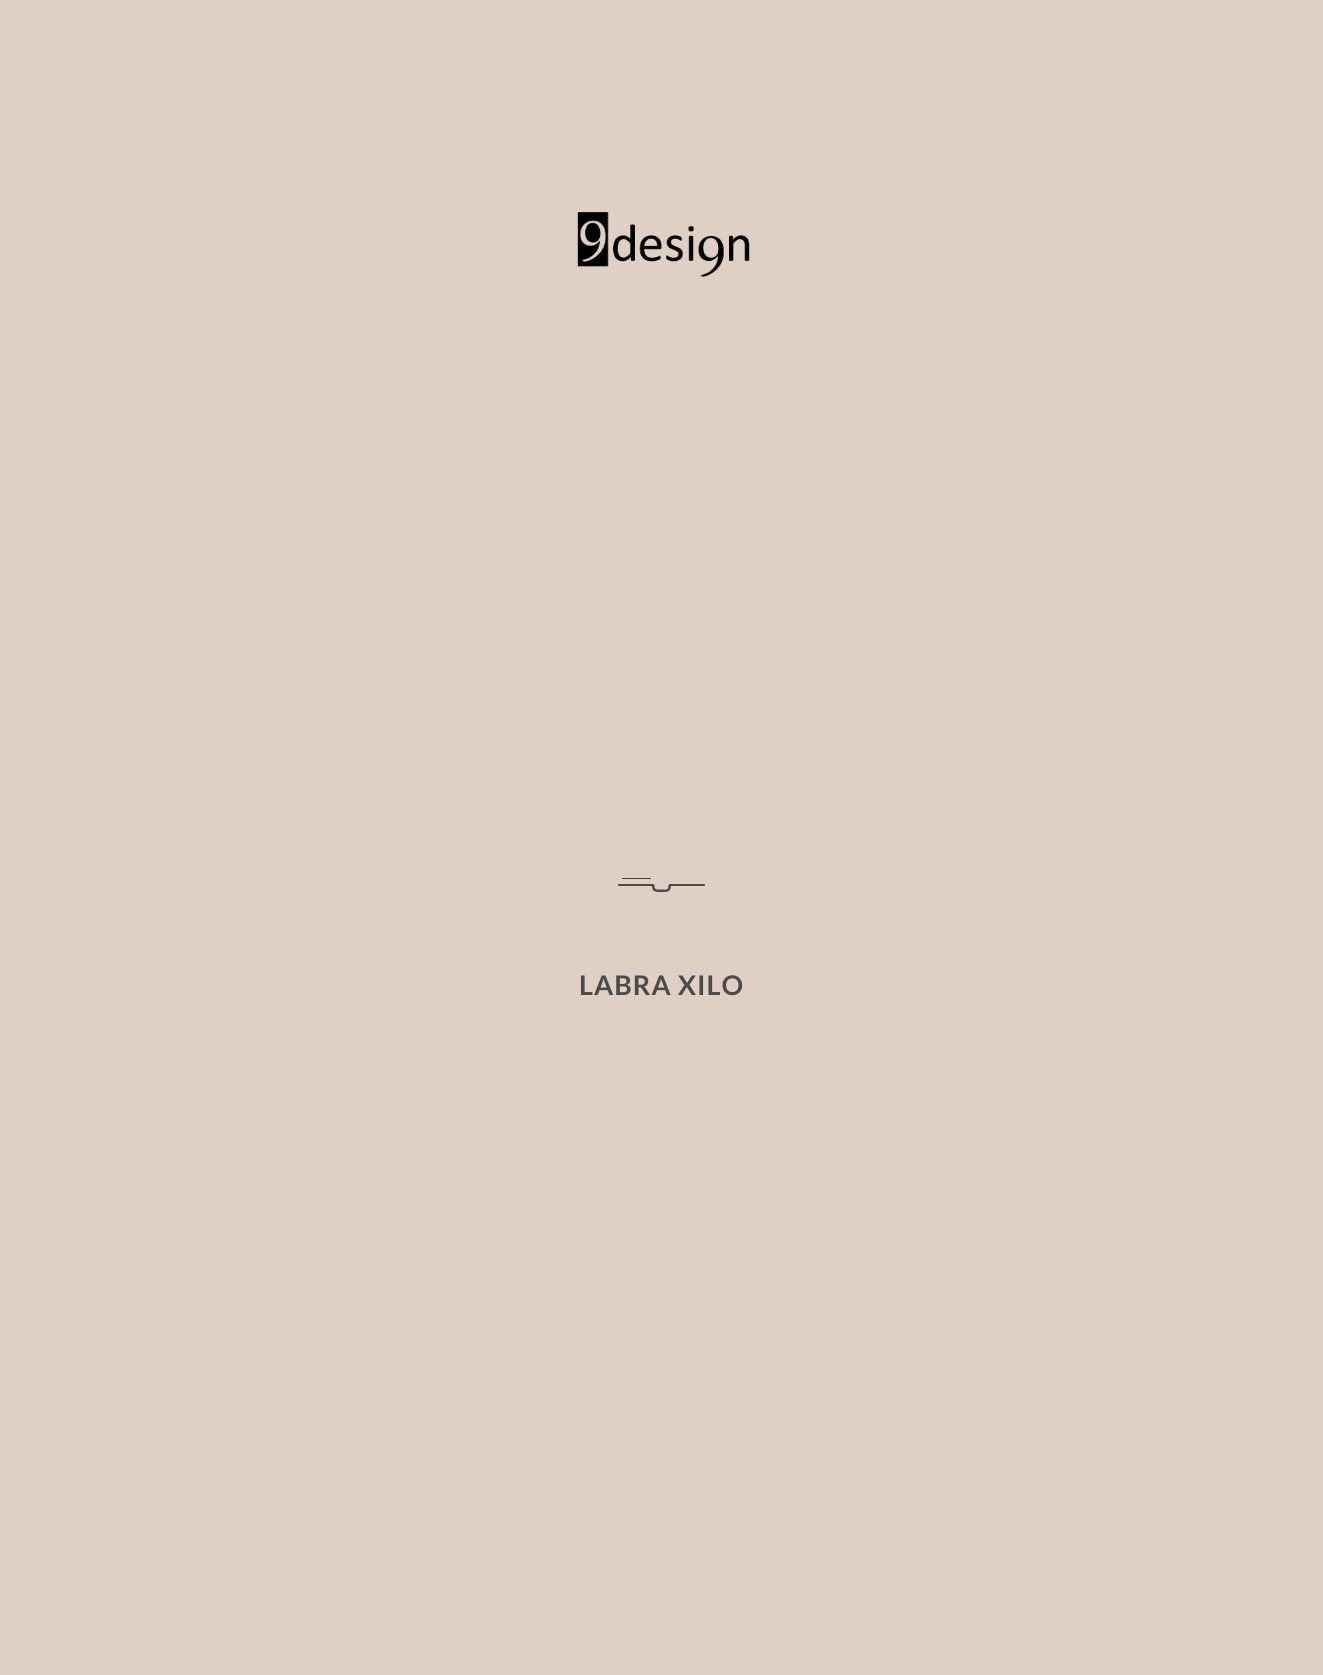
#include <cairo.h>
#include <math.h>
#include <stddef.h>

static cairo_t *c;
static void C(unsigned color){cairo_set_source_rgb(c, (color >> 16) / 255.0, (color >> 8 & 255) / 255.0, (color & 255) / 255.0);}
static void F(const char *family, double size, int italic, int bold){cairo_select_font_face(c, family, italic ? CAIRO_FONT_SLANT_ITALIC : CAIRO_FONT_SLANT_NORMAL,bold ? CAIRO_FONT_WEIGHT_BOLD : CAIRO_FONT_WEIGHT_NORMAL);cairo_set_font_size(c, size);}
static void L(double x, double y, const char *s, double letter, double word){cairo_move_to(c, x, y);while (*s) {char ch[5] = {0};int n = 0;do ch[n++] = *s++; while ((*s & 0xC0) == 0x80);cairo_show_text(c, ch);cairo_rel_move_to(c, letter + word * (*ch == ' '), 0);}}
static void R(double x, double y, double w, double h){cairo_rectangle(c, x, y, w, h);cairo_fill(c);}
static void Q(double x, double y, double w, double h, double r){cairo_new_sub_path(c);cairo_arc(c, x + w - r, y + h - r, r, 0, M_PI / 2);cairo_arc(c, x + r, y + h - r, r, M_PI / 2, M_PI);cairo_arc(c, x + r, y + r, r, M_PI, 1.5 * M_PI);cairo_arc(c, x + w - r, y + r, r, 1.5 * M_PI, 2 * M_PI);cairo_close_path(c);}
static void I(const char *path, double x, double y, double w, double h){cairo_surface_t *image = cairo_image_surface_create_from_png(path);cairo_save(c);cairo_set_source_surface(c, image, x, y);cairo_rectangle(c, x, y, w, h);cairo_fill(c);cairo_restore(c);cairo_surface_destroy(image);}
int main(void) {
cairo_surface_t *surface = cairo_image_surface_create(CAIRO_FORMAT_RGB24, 1323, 1675);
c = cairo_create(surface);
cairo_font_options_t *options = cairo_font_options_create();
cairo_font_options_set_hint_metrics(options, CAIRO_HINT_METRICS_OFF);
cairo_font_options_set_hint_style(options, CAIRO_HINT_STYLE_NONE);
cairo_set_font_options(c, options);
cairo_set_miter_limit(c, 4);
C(0xe0cfc5);
cairo_paint(c);
I("1.png",577,212,173,66);
C(0x444444);
R(622,878,29,1);
C(0x4c4b4a);
Q(618,884,36,2,1);
cairo_fill(c);
cairo_set_source_rgba(c,0.267,0.267,0.267,0.95);
cairo_set_fill_rule(c,CAIRO_FILL_RULE_EVEN_ODD);
cairo_new_path(c);
cairo_move_to(c,652,885);
cairo_line_to(c,671,885);
cairo_curve_to(c,671,892,667.5,892,661.5,892);
cairo_curve_to(c,657.5,892,652,892.5,652,886.5);
cairo_close_path(c);
cairo_move_to(c,654.5,885);
cairo_line_to(c,668.5,885);
cairo_curve_to(c,668.5,890.5,666.5,889.5,661.5,889.5);
cairo_curve_to(c,659,889.5,654.5,890.5,654.5,886.5);
cairo_close_path(c);
cairo_fill(c);
Q(669,884,36,2,1);
cairo_fill(c);
F("Lato",27,0,1);
C(0x4c4b4a);
L(579,995,"LABRA XILO",1,0);
cairo_surface_write_to_png(surface, "o.png");
cairo_font_options_destroy(options);
cairo_destroy(c);
cairo_surface_destroy(surface);
return 0;
}
